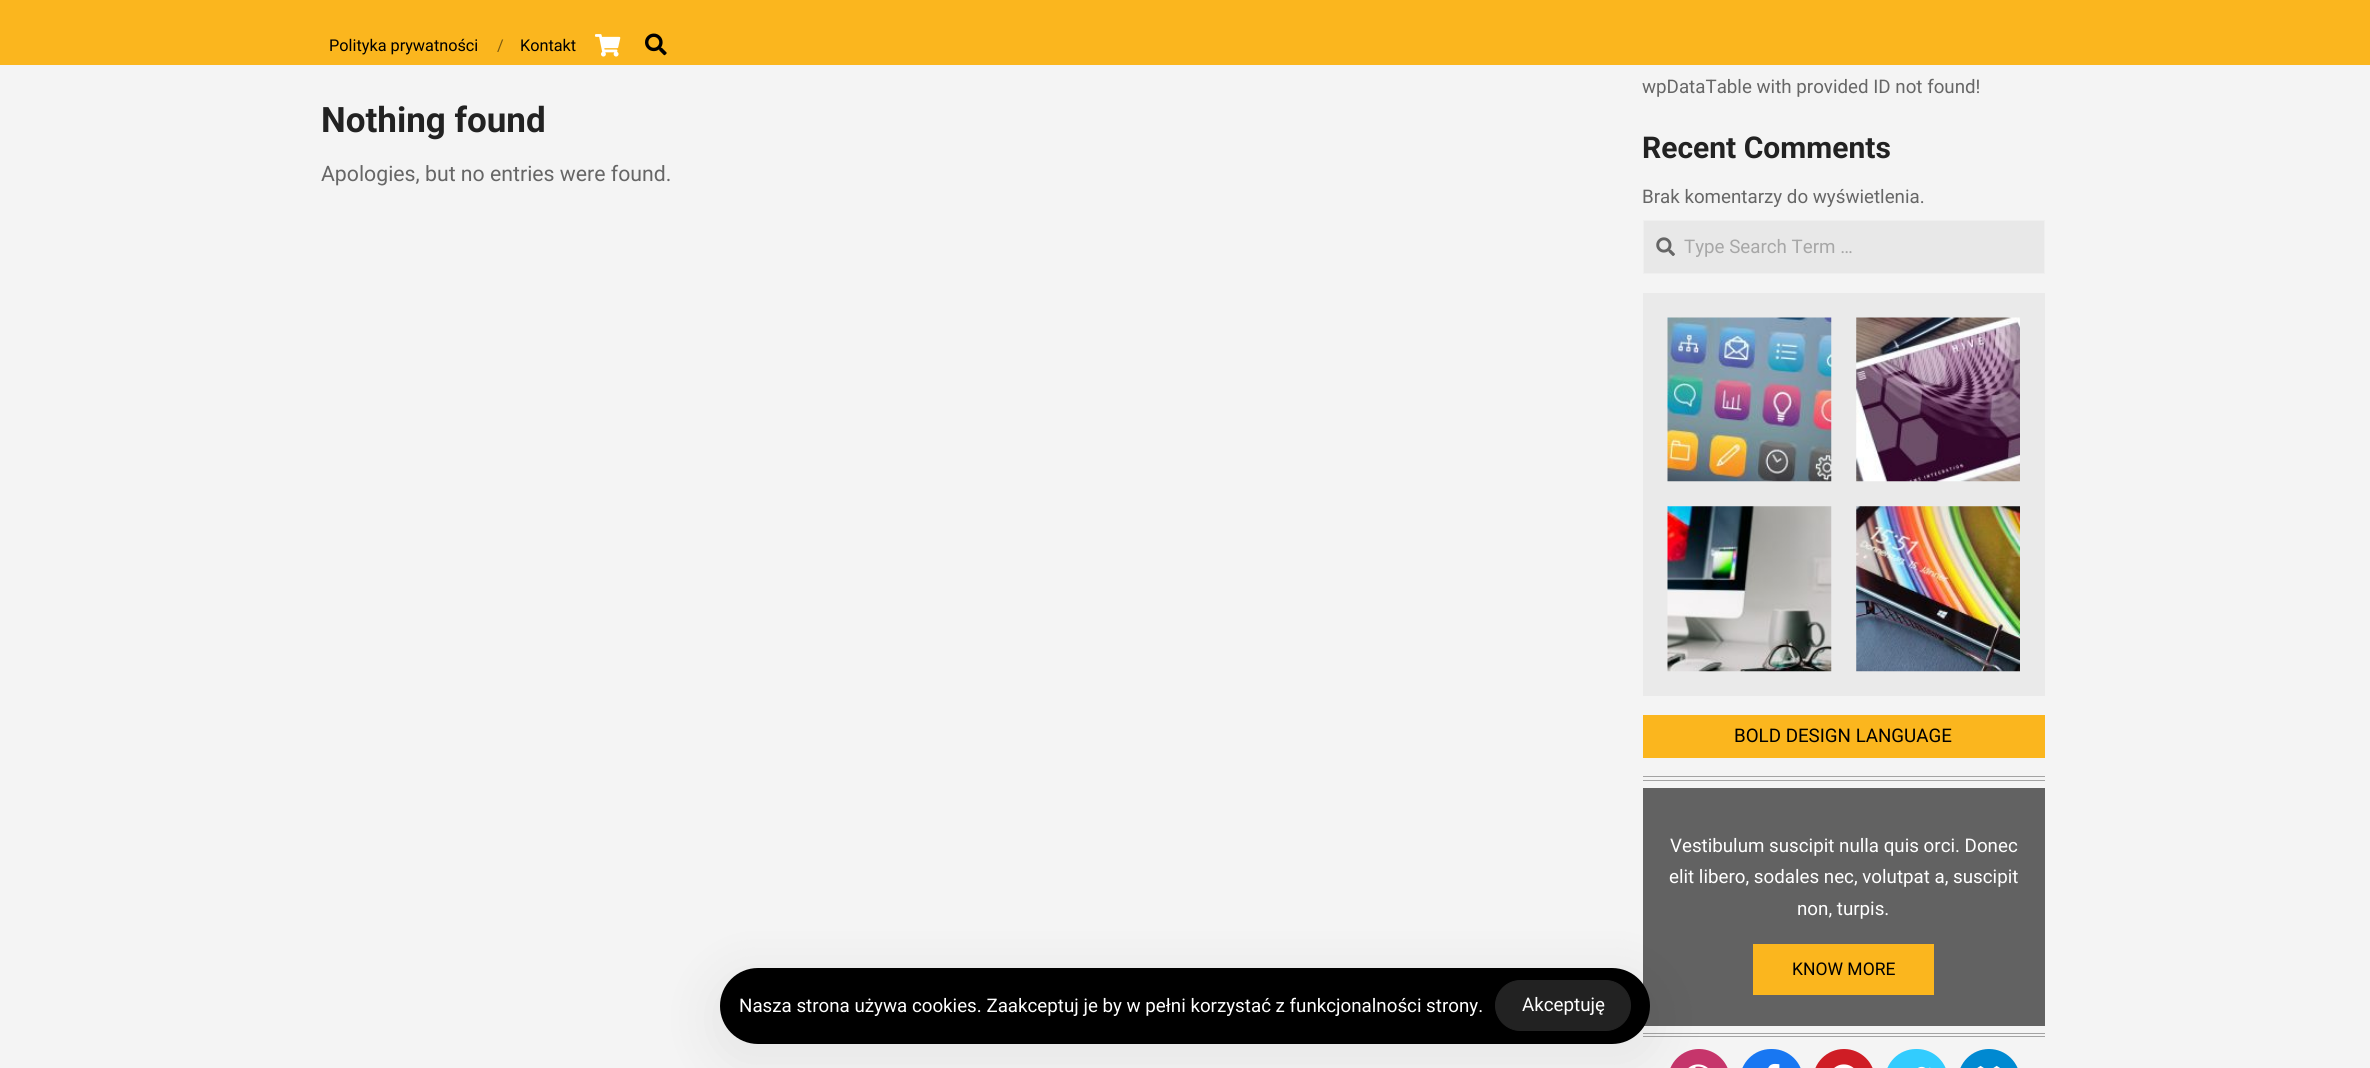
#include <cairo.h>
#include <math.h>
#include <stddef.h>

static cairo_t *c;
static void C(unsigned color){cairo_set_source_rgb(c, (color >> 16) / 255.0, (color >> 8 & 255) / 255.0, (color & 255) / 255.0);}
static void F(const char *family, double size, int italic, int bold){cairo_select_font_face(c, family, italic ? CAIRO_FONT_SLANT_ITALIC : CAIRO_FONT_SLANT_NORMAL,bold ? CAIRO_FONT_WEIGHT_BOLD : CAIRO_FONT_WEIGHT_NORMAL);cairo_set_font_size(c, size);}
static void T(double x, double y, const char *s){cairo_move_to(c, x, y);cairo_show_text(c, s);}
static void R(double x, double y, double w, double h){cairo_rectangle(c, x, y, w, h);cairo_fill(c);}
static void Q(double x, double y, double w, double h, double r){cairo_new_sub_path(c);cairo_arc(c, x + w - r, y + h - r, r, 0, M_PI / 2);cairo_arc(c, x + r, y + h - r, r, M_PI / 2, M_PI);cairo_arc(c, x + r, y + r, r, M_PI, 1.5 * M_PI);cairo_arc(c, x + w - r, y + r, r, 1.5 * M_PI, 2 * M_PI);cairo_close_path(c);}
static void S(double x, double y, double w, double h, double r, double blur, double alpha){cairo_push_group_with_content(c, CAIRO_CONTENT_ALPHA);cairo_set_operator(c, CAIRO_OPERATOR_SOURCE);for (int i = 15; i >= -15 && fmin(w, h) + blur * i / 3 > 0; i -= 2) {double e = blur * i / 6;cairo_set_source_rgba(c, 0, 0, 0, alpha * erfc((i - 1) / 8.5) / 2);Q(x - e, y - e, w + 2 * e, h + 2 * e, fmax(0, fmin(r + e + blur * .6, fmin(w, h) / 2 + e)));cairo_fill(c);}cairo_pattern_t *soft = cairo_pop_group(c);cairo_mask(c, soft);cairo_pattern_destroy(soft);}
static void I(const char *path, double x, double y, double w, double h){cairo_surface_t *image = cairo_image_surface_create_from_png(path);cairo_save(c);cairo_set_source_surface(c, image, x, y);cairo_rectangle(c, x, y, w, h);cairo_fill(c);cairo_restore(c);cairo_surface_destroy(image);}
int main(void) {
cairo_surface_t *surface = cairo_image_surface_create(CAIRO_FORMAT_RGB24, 2370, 1068);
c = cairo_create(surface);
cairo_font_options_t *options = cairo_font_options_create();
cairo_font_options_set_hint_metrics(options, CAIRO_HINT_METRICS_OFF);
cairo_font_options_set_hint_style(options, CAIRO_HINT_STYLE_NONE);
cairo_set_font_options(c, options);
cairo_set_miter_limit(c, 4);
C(0xfbb61e);
cairo_paint(c);
F("Roboto",16.25,0,0);
C(0x000000);
T(329,51,"Polityka prywatności");
C(0x7e5b0f);
T(497,51,"/");
C(0x000000);
T(520,51,"Kontakt");
I("1.png",595,34,26,23);
I("2.png",645,33,22,23);
C(0xf4f4f4);
R(0,65,2370,1003);
F("Roboto",35,0,1);
C(0x222222);
T(321,132,"Nothing found");
F("Roboto",21.25,0,0);
C(0x666666);
T(321,181,"Apologies, but no entries were found.");
F("Roboto",18.75,0,0);
T(1642,93,"wpDataTable with provided ID not found!");
F("Roboto",30,0,1);
C(0x222222);
T(1642,158,"Recent Comments");
F("Roboto",18.75,0,0);
C(0x666666);
T(1642,203,"Brak komentarzy do wyświetlenia.");
C(0xe8e8e8);
cairo_rectangle(c,1643.5,220.5,401,53);
cairo_fill_preserve(c);
C(0xefefef);
cairo_set_line_width(c,1);
cairo_stroke(c);
I("3.png",1656,237,19,19);
C(0xa7a7a7);
T(1684,253,"Type Search Term …");
C(0xeaeaea);
R(1643,293,402,403);
I("4.png",1667,317,165,165);
I("5.png",1856,317,164,165);
I("6.png",1667,506,165,166);
I("7.png",1856,506,164,166);
C(0xfbb61e);
R(1643,715,402,43);
C(0x000000);
T(1734,742,"BOLD DESIGN LANGUAGE");
C(0xa3a3a3);
R(1643,776,402,1);
R(1643,780,402,1);
C(0x626262);
R(1643,788,402,238);
C(0xffffff);
T(1670,852,"Vestibulum suscipit nulla quis orci. Donec");
T(1669,883,"elit libero, sodales nec, volutpat a, suscipit");
T(1797,915,"non, turpis.");
C(0xfbb61e);
R(1753,944,181,51);
F("Roboto",17.5,0,0);
C(0x000000);
T(1792,975,"KNOW MORE");
C(0xa3a3a3);
R(1643,1033,402,1);
R(1643,1036,402,1);
C(0xc6356b);
Q(1668,1049,62,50,31);
cairo_fill(c);
I("8.png",1688,1064,20,4);
C(0x1877f2);
Q(1740,1049,63,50,31);
cairo_fill(c);
I("9.png",1768,1063,12,5);
C(0xcf1d25);
Q(1813,1049,62,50,31);
cairo_fill(c);
I("10.png",1834,1064,20,4);
C(0x32ccfe);
Q(1885,1049,63,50,31);
cairo_fill(c);
I("11.png",1918,1066,13,2);
C(0x0089d1);
Q(1958,1049,62,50,31);
cairo_fill(c);
I("12.png",1977,1065,23,3);
C(0x000000);
S(708,968,955,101,50.5,25,.05);
C(0x000000);
Q(720,968,930,76,38);
cairo_fill(c);
F("Roboto",18.75,0,0);
C(0xffffff);
T(739,1012,"Nasza strona używa cookies. Zaakceptuj je by w pełni korzystać z funkcjonalności strony.");
C(0x222222);
Q(1495.5,980.5,135,50,25);
cairo_fill_preserve(c);
cairo_stroke(c);
C(0xffffff);
T(1522,1011,"Akceptuję");
cairo_surface_write_to_png(surface, "o.png");
cairo_font_options_destroy(options);
cairo_destroy(c);
cairo_surface_destroy(surface);
return 0;
}
